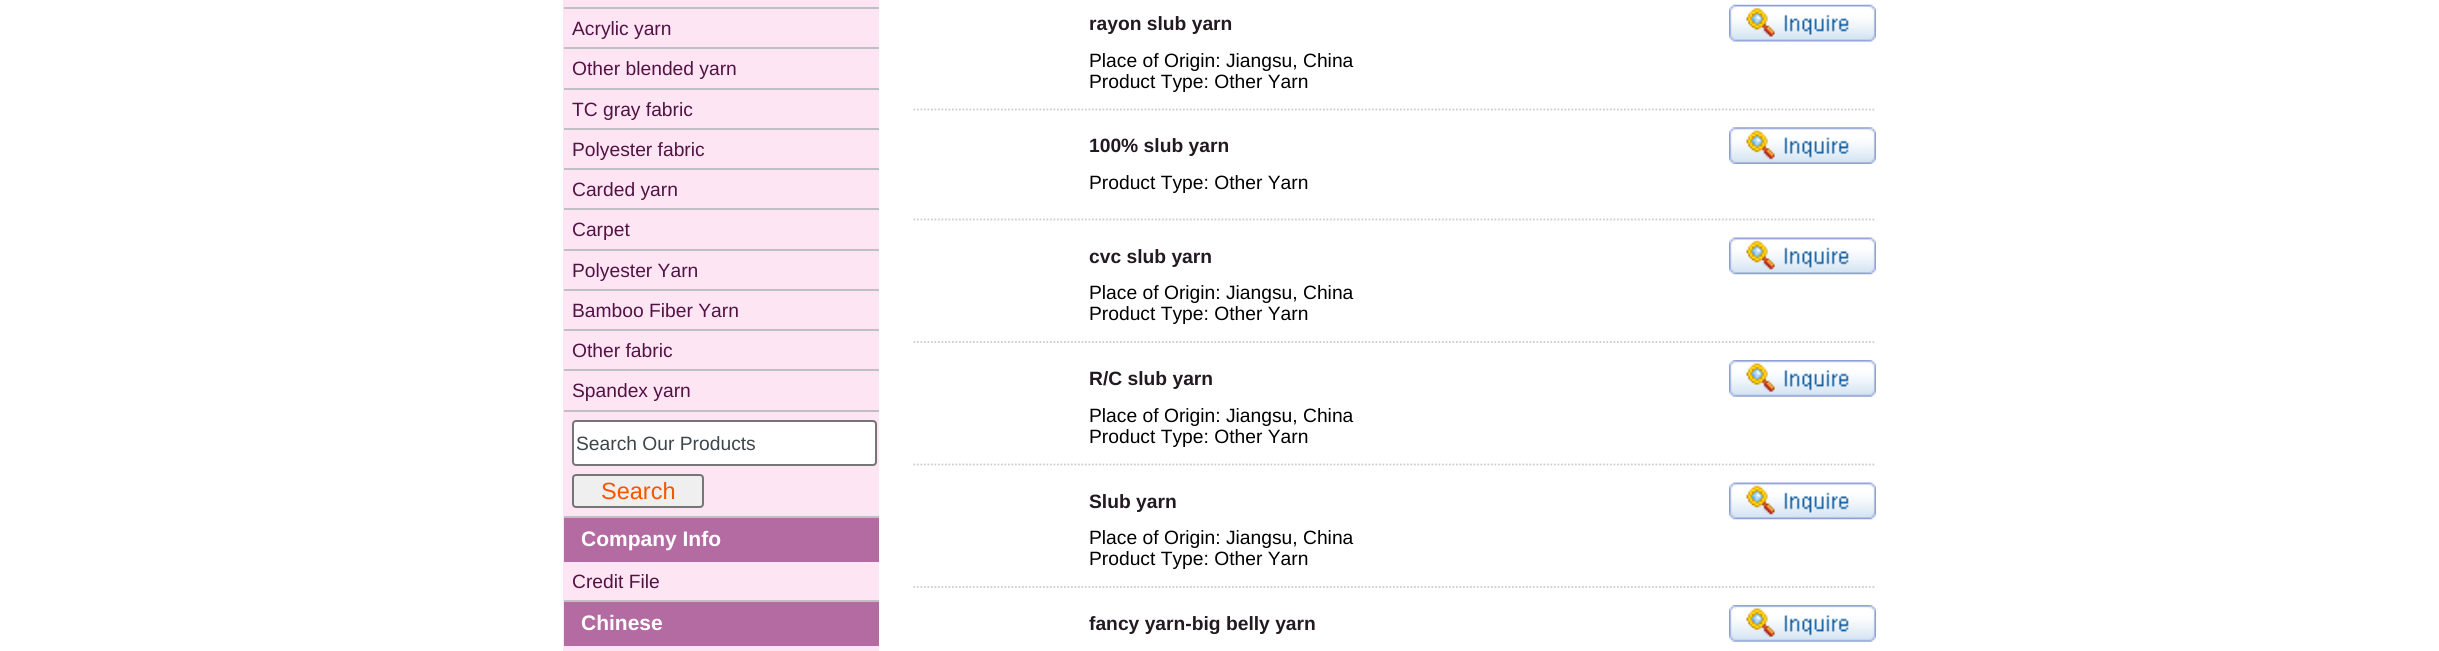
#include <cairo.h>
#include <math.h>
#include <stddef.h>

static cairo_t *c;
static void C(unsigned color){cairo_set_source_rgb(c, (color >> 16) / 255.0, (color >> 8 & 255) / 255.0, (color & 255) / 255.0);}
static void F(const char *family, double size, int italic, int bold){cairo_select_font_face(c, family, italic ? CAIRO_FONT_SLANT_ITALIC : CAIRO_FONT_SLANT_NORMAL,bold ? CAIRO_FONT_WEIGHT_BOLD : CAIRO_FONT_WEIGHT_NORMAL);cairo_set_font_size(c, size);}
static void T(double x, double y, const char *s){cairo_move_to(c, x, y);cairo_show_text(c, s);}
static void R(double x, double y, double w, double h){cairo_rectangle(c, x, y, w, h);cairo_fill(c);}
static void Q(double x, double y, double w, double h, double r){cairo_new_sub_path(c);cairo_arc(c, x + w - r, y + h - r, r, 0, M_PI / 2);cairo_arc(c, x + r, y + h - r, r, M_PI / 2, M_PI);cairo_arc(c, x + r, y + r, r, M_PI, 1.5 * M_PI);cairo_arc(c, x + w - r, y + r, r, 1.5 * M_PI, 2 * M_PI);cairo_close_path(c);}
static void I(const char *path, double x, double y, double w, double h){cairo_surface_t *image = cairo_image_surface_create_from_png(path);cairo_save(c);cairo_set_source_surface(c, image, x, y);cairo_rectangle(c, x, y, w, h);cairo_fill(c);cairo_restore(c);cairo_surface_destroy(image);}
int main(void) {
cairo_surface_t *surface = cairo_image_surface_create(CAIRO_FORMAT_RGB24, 2439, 651);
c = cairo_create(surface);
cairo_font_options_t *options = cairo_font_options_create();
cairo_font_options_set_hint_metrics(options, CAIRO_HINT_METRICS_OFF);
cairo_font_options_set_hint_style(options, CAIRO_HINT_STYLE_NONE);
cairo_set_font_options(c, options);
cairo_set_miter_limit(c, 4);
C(0xffffff);
cairo_paint(c);
C(0xfee5f4);
R(563,0,316,651);
C(0xbfbfc8);
R(564,7,315,2);
R(564,47,315,2);
F("Liberation Sans",19.25,0,0);
C(0x531244);
T(572,35,"Acrylic yarn");
C(0xbfbfc8);
R(564,88,315,2);
C(0x531244);
T(572,75,"Other blended yarn");
C(0xbfbfc8);
R(564,128,315,2);
C(0x531244);
T(572,116,"TC gray fabric");
C(0xbfbfc8);
R(564,168,315,2);
C(0x531244);
T(572,156,"Polyester fabric");
C(0xbfbfc8);
R(564,208,315,2);
C(0x531244);
T(572,196,"Carded yarn");
C(0xbfbfc8);
R(564,249,315,2);
C(0x531244);
T(572,236,"Carpet");
C(0xbfbfc8);
R(564,289,315,2);
C(0x531244);
T(572,277,"Polyester Yarn");
C(0xbfbfc8);
R(564,329,315,2);
C(0x531244);
T(572,317,"Bamboo Fiber Yarn");
C(0xbfbfc8);
R(564,369,315,2);
C(0x531244);
T(572,357,"Other fabric");
C(0xbfbfc8);
R(564,410,315,2);
C(0x531244);
T(572,397,"Spandex yarn");
C(0xbfbfc8);
R(564,516,315,2);
C(0xffffff);
Q(573,421,303,44,3);
cairo_fill_preserve(c);
C(0x767676);
cairo_stroke(c);
C(0x3d464b);
T(576,450,"Search Our Products");
C(0xefefef);
Q(573,475,130,32,3);
cairo_fill_preserve(c);
C(0x767676);
cairo_stroke(c);
F("Liberation Sans",23.5,0,0);
C(0xf65500);
T(601,499,"Search");
C(0xb36ba2);
R(564,518,315,44);
F("Liberation Sans",21,0,1);
C(0xffffff);
T(581,546,"Company Info");
C(0xbfbfc8);
R(564,600,315,2);
F("Liberation Sans",19.25,0,0);
C(0x531244);
T(572,588,"Credit File");
C(0xb36ba2);
R(564,602,315,44);
F("Liberation Sans",21,0,1);
C(0xffffff);
T(581,630,"Chinese");
cairo_new_path(c);
cairo_move_to(c,913.5,109.5);
cairo_line_to(c,1876,109.5);
C(0xcccccc);
cairo_set_line_width(c,1.8);
cairo_set_dash(c,(double[]){1.75,1.75},2,0);
cairo_stroke(c);
F("Liberation Sans",19.25,0,1);
C(0x231921);
T(1089,30,"rayon slub yarn");
I("1.png",1729,4,147,38);
F("Liberation Sans",19.25,0,0);
C(0x000000);
T(1089,67,"Place of Origin: Jiangsu, China");
T(1089,88,"Product Type: Other Yarn");
cairo_new_path(c);
cairo_move_to(c,913.5,219.5);
cairo_line_to(c,1876,219.5);
C(0xcccccc);
cairo_stroke(c);
F("Liberation Sans",19.25,0,1);
C(0x231921);
T(1089,152,"100% slub yarn");
I("2.png",1729,127,147,37);
F("Liberation Sans",19.25,0,0);
C(0x000000);
T(1089,189,"Product Type: Other Yarn");
cairo_new_path(c);
cairo_move_to(c,913.5,342);
cairo_line_to(c,1876,342);
C(0xcccccc);
cairo_stroke(c);
F("Liberation Sans",19.25,0,1);
C(0x231921);
T(1089,263,"cvc slub yarn");
I("3.png",1729,237,147,38);
F("Liberation Sans",19.25,0,0);
C(0x000000);
T(1089,299,"Place of Origin: Jiangsu, China");
T(1089,320,"Product Type: Other Yarn");
cairo_new_path(c);
cairo_move_to(c,913.5,464.5);
cairo_line_to(c,1876,464.5);
C(0xcccccc);
cairo_stroke(c);
F("Liberation Sans",19.25,0,1);
C(0x231921);
T(1089,385,"R/C slub yarn");
I("4.png",1729,360,147,37);
F("Liberation Sans",19.25,0,0);
C(0x000000);
T(1089,422,"Place of Origin: Jiangsu, China");
T(1089,443,"Product Type: Other Yarn");
cairo_new_path(c);
cairo_move_to(c,913.5,587);
cairo_line_to(c,1876,587);
C(0xcccccc);
cairo_stroke(c);
F("Liberation Sans",19.25,0,1);
C(0x231921);
T(1089,508,"Slub yarn");
I("3.png",1729,482,147,38);
F("Liberation Sans",19.25,0,0);
C(0x000000);
T(1089,544,"Place of Origin: Jiangsu, China");
T(1089,565,"Product Type: Other Yarn");
F("Liberation Sans",19.25,0,1);
C(0x231921);
T(1089,630,"fancy yarn-big belly yarn");
I("4.png",1729,605,147,37);
cairo_surface_write_to_png(surface, "o.png");
cairo_font_options_destroy(options);
cairo_destroy(c);
cairo_surface_destroy(surface);
return 0;
}
